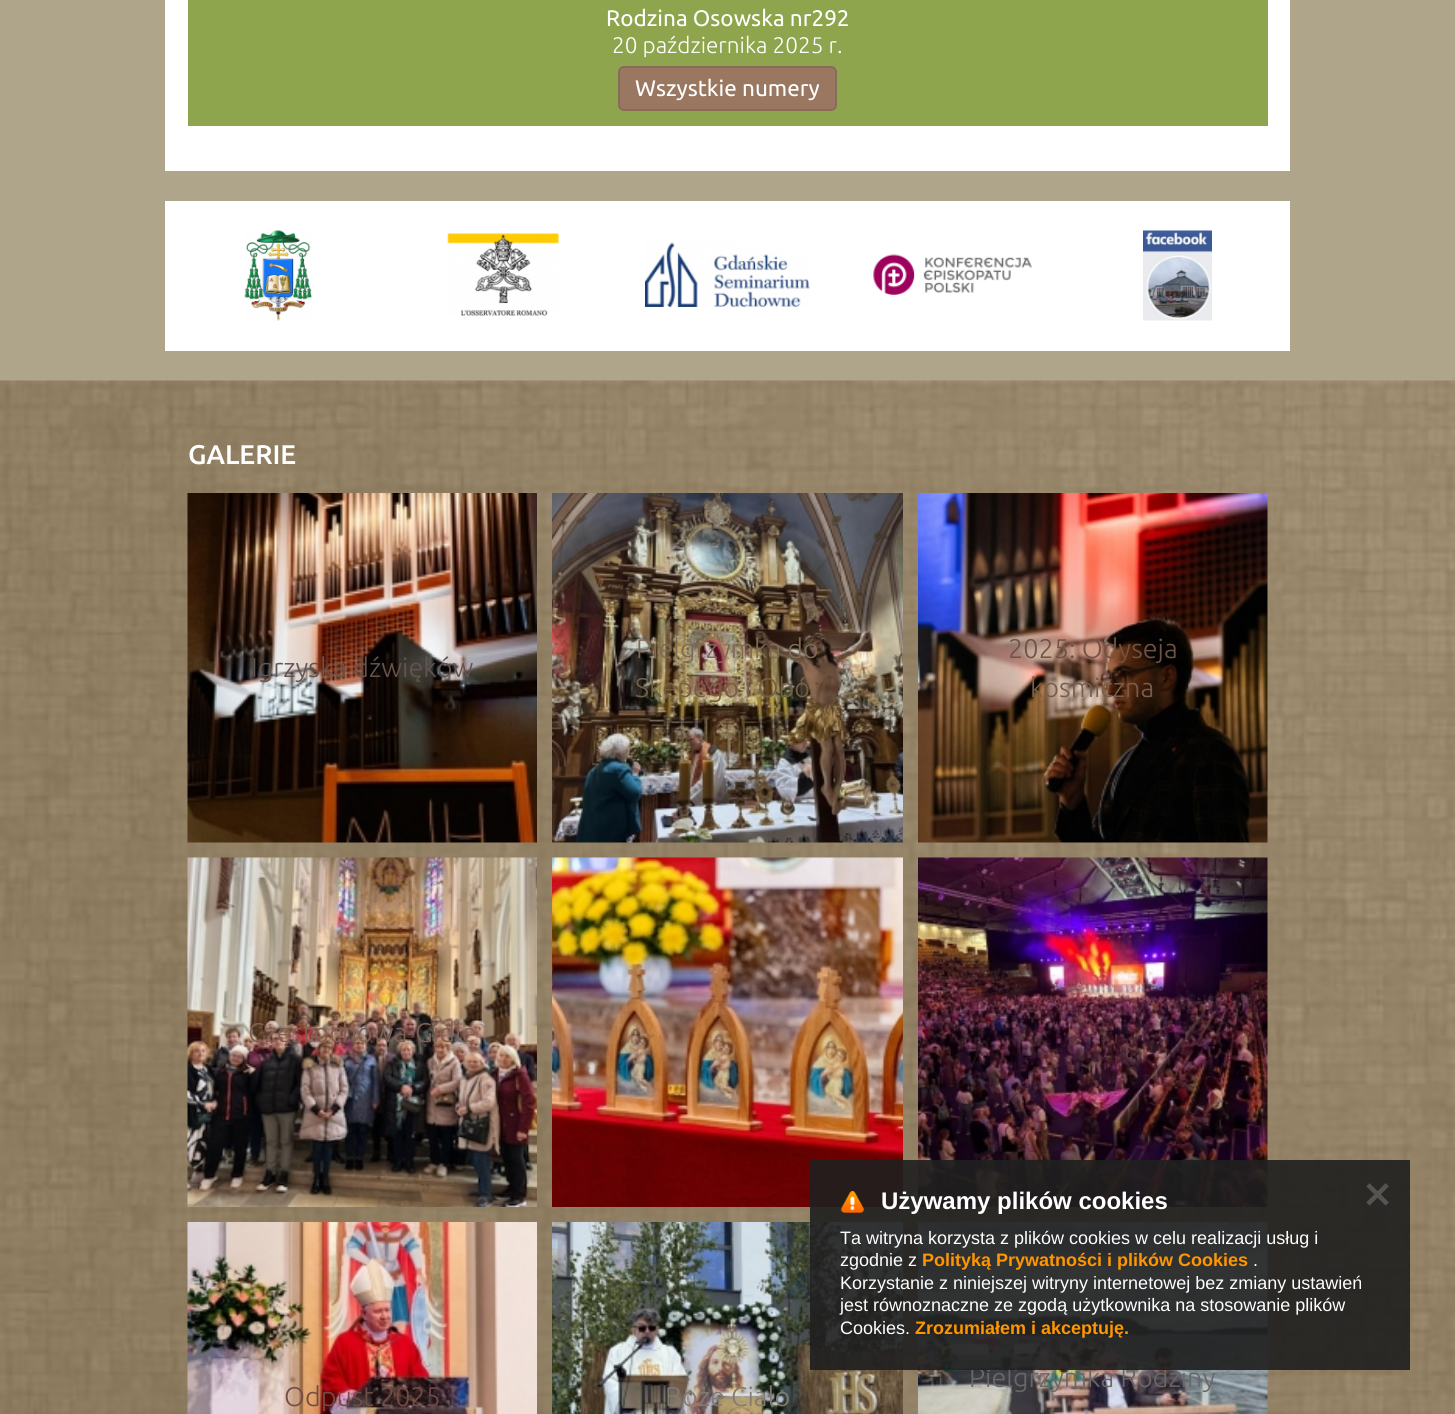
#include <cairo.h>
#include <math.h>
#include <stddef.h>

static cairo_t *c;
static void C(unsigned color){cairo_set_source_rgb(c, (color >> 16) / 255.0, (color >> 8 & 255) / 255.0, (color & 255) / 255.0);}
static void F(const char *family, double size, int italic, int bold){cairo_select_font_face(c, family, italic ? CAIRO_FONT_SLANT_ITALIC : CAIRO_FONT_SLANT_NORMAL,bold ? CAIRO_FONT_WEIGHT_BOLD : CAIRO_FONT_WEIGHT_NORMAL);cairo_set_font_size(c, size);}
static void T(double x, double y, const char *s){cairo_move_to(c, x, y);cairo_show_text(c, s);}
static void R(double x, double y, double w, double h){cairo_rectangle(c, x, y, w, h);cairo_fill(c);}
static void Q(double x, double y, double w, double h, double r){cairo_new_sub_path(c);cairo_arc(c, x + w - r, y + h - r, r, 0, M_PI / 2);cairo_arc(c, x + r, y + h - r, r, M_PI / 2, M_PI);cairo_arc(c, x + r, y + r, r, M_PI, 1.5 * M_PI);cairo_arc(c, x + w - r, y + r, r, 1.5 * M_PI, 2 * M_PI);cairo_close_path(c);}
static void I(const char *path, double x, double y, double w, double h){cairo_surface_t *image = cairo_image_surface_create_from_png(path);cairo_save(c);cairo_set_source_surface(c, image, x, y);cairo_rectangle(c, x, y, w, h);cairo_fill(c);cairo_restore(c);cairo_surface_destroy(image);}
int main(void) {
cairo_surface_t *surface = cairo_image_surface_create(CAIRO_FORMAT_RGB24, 1455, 1414);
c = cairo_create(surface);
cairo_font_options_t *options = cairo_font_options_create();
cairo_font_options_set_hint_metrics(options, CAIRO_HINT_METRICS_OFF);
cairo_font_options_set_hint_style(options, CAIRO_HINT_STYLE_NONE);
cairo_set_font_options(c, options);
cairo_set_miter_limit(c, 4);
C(0xafa58b);
cairo_paint(c);
C(0xffffff);
R(165,0,1125,171);
C(0x8ea54d);
R(188,0,1080,126);
F("Ubuntu",22.5,0,0);
C(0xffffff);
T(606,26,"Rodzina Osowska nr292");
F("Ubuntu Light",22.5,0,0);
T(612,53,"20 października 2025 r.");
C(0x9a7761);
Q(619,67,217,43,5);
cairo_fill_preserve(c);
C(0x8a6b57);
cairo_stroke(c);
F("Ubuntu",22.5,0,0);
C(0xffffff);
T(635,96,"Wszystkie numery");
R(165,201,1125,150);
I("1.png",244,230,68,91);
I("2.png",447,233,112,83);
I("3.png",645,242,165,65);
I("4.png",873,254,159,41);
I("5.png",1143,230,69,91);
I("6.png",0,380,1455,1034);
F("Ubuntu Medium",27,0,0);
T(188,464,"GALERIE");
I("7.png",187,493,350,350);
F("Ubuntu Light",27,0,0);
C(0x64544e);
T(251,677,"Igrzyska dźwięków");
I("8.png",552,493,351,350);
C(0x7f6a54);
T(636,658,"Pielgrzymka do");
C(0x735f43);
T(635,697,"Skępego i Obó");
I("9.png",918,493,350,350);
C(0x715346);
T(1008,658,"2025: Odyseja");
C(0x795d4a);
T(1030,697,"kosmiczna");
I("10.png",187,857,350,350);
C(0x815f54);
T(248,1042,"Częstochowa-Gidle");
I("11.png",552,857,351,350);
I("12.png",918,857,350,350);
I("13.png",918,1222,350,192);
C(0x6b6769);
T(969,1387,"Pielgrzymka Rodziny");
I("14.png",187,1222,350,192);
C(0x734c45);
T(284,1406,"Odpust 2025");
I("15.png",552,1222,351,192);
C(0x837b70);
T(665,1406,"Boże Ciało");
cairo_set_source_rgba(c,0.122,0.122,0.122,0.9);
R(810,1160,600,210);
I("16.png",840,1191,24,22);
F("Liberation Sans",24,0,1);
C(0xffffff);
T(881,1209,"Używamy plików cookies");
F("DejaVu Sans",36,0,1);
C(0x555452);
T(1362,1208,"✕");
F("Liberation Sans",18,0,0);
C(0xffffff);
T(840,1244,"Ta witryna korzysta z plików cookies w celu realizacji usług i");
T(840,1266,"zgodnie z");
F("Liberation Sans",18,0,1);
C(0xff9600);
T(922,1266,"Polityką Prywatności i plików Cookies");
F("Liberation Sans",18,0,0);
C(0xffffff);
T(1253,1266,".");
T(840,1289,"Korzystanie z niniejszej witryny internetowej bez zmiany ustawień");
T(840,1311,"jest równoznaczne ze zgodą użytkownika na stosowanie plików");
T(840,1334,"Cookies.");
F("Liberation Sans",18,0,1);
C(0xff9600);
T(915,1334,"Zrozumiałem i akceptuję.");
cairo_surface_write_to_png(surface, "o.png");
cairo_font_options_destroy(options);
cairo_destroy(c);
cairo_surface_destroy(surface);
return 0;
}
